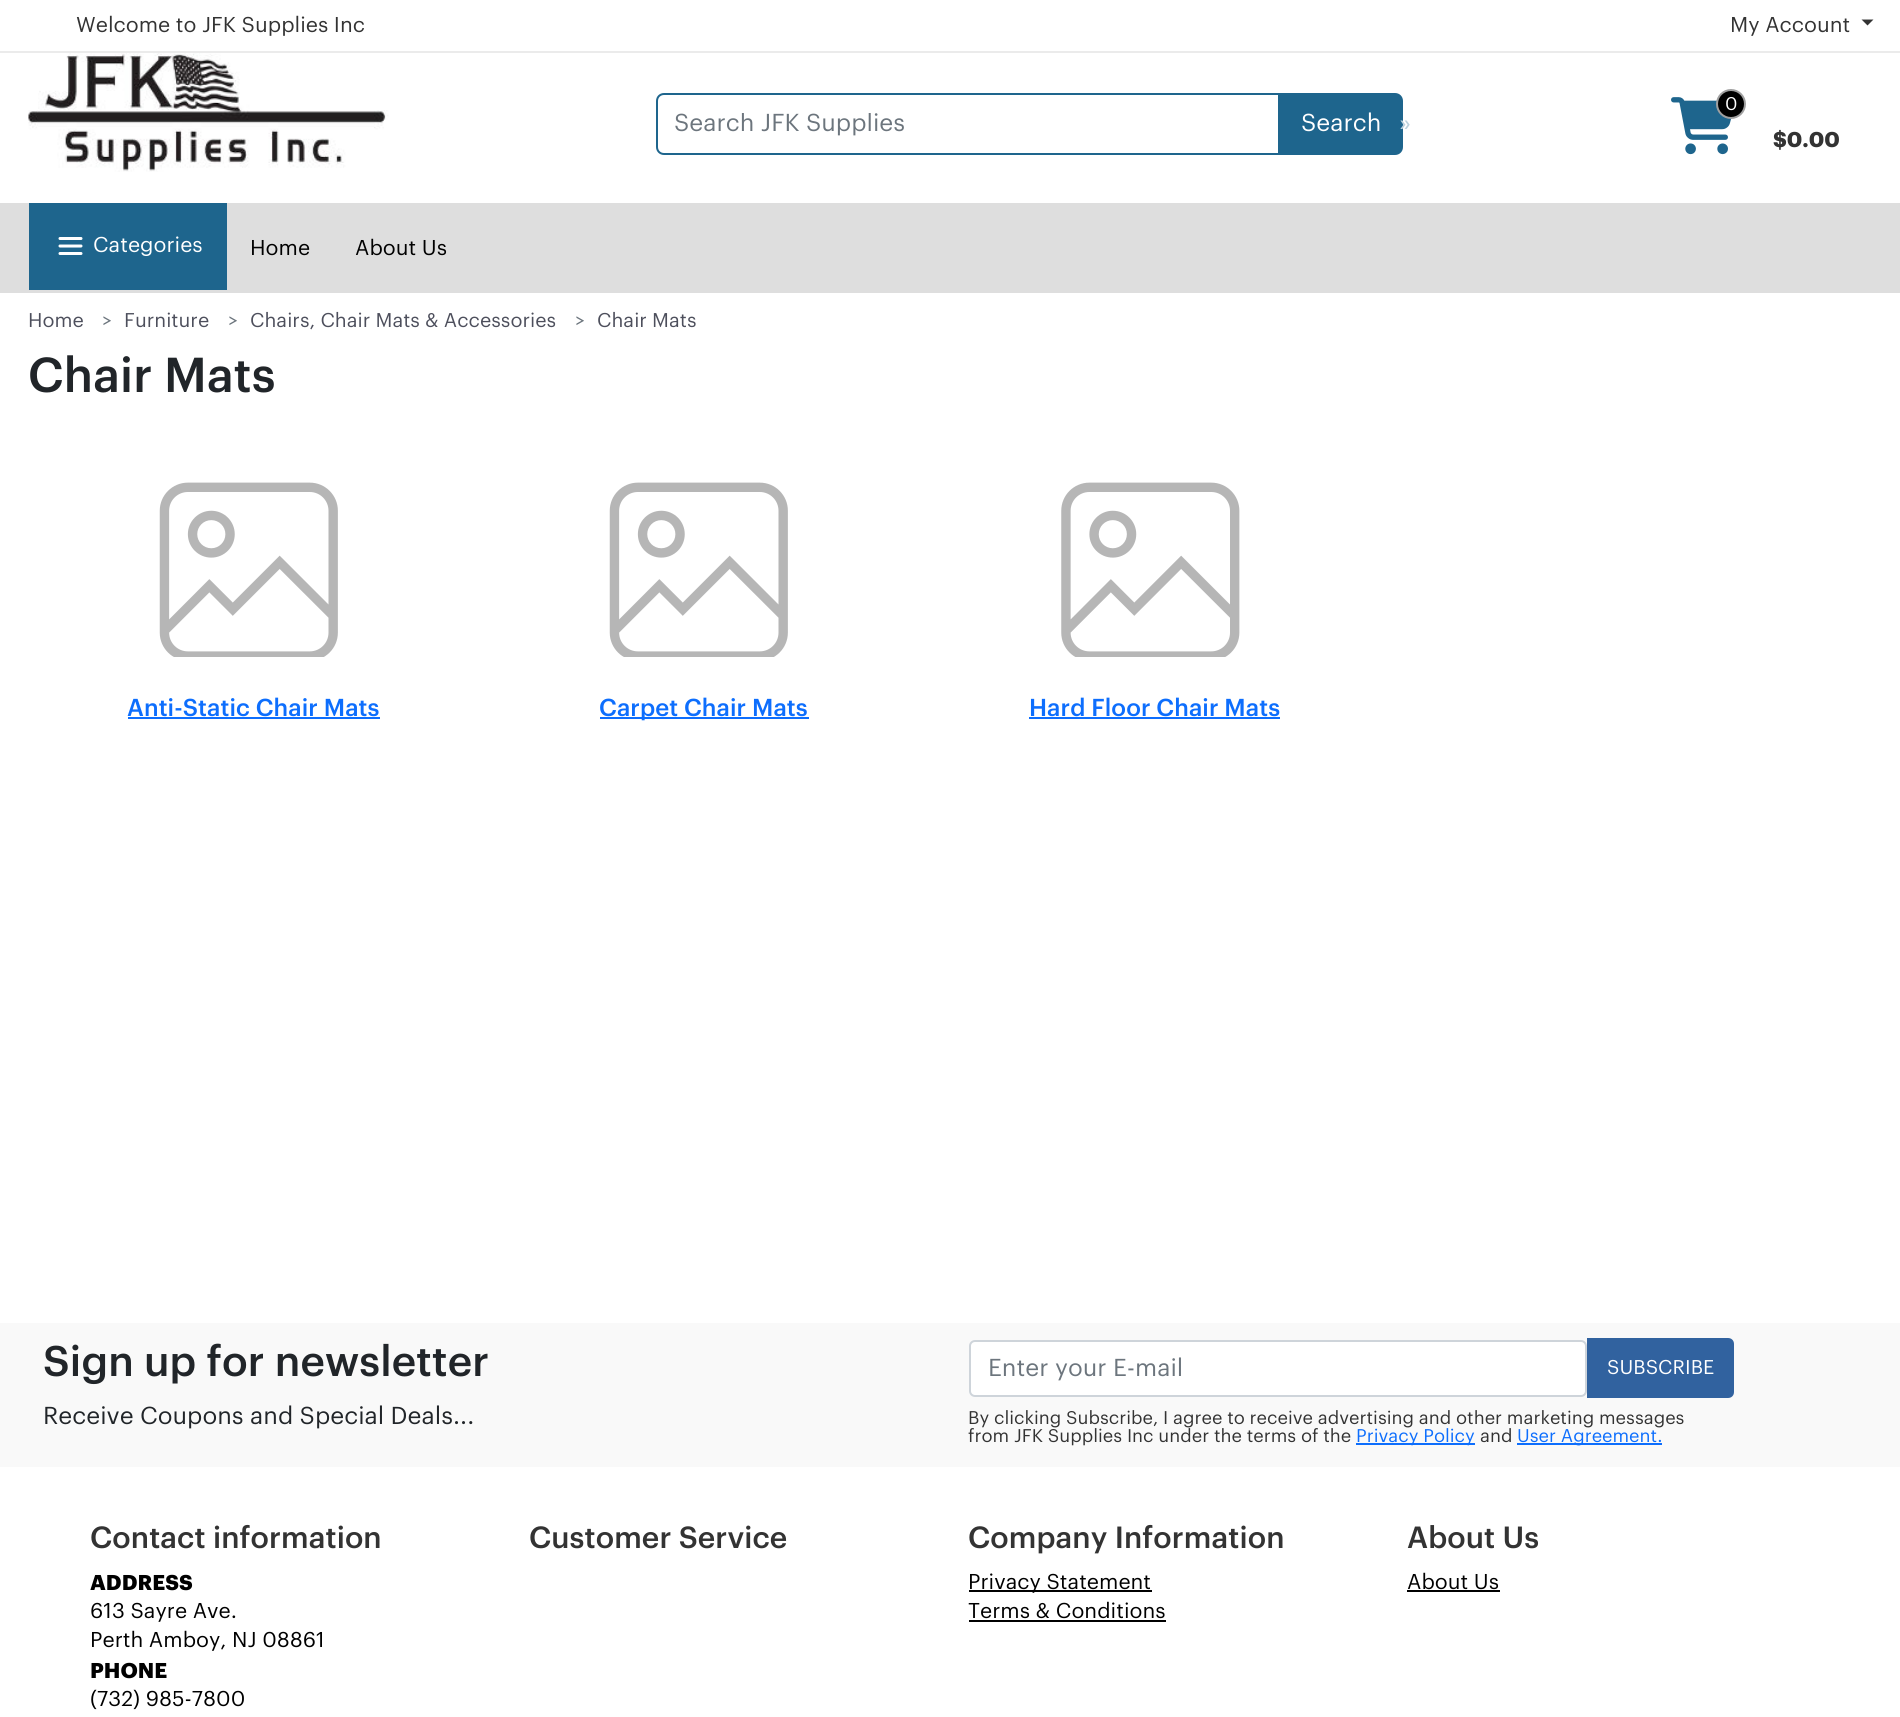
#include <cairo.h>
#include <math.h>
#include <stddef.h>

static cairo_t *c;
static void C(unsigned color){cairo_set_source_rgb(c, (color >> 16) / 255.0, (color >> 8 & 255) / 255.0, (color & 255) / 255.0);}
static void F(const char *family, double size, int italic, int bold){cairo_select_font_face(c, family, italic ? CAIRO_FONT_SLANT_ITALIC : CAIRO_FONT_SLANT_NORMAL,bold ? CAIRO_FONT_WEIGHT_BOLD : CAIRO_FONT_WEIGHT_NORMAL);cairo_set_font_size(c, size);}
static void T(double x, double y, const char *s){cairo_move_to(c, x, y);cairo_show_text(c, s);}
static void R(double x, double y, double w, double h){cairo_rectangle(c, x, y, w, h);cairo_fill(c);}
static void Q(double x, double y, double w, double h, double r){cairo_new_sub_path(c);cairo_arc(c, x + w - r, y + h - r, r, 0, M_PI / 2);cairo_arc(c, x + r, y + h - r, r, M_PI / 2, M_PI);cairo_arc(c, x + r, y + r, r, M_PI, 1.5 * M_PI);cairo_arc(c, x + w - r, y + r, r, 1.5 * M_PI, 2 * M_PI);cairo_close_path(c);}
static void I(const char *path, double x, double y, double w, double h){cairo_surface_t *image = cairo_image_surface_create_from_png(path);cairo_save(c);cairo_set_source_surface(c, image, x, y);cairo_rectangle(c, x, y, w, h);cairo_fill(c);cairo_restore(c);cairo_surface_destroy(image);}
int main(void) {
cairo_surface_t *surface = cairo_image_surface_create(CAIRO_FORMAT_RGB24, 1900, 1717);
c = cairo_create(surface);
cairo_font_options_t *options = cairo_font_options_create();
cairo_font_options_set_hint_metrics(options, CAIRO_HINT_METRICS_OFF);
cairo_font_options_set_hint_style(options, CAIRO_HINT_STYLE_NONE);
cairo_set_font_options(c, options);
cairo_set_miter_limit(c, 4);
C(0xffffff);
cairo_paint(c);
C(0xebebeb);
R(0,51,1900,2);
F("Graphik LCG",21,0,0);
C(0x333333);
T(76,32,"Welcome to JFK Supplies Inc");
T(1730,32,"My Account");
cairo_new_path(c);
cairo_move_to(c,1861.5,19.5);
cairo_line_to(c,1873.5,19.5);
cairo_line_to(c,1867.5,25.5);
cairo_close_path(c);
cairo_fill(c);
I("1.png",28,53,361,119);
C(0x1e658d);
cairo_new_path(c);
cairo_move_to(c,1254,94);
cairo_line_to(c,1395,94);
cairo_curve_to(c,1399,94,1402,97,1402,101);
cairo_line_to(c,1402,147);
cairo_curve_to(c,1402,151,1399,154,1395,154);
cairo_line_to(c,1254,154);
cairo_close_path(c);
cairo_fill_preserve(c);
cairo_stroke(c);
C(0xffffff);
cairo_new_path(c);
cairo_move_to(c,664,94);
cairo_line_to(c,1279,94);
cairo_line_to(c,1279,154);
cairo_line_to(c,664,154);
cairo_curve_to(c,660,154,657,151,657,147);
cairo_line_to(c,657,101);
cairo_curve_to(c,657,97,660,94,664,94);
cairo_close_path(c);
cairo_fill_preserve(c);
C(0x1e658d);
cairo_stroke(c);
cairo_save(c);
cairo_rectangle(c,675,113,585,24);
cairo_clip(c);
F("Graphik LCG",24,0,0);
C(0x6c757d);
T(674,131,"Search JFK Supplies");
cairo_restore(c);
F("Graphik LCG",24,0,0);
C(0xffffff);
T(1301,131,"Search");
C(0xbcd1dd);
T(1399,131,"»");
I("2.png",1671,97,61,58);
C(0x000000);
cairo_arc(c,1731,104,14,0,2 * M_PI);
cairo_fill_preserve(c);
C(0xa0a0a0);
cairo_stroke(c);
F("Graphik LCG",18,0,0);
C(0xffffff);
T(1725,110,"0");
F("Graphik LCG",21,0,1);
C(0x333333);
T(1773,147,"$0.00");
C(0xdedede);
R(0,203,1900,90);
C(0x1e658d);
R(29,203,198,87);
cairo_new_path(c);
cairo_move_to(c,60,253.5);
cairo_line_to(c,81,253.5);
cairo_move_to(c,60,246);
cairo_line_to(c,81,246);
cairo_move_to(c,60,238.5);
cairo_line_to(c,81,238.5);
C(0xffffff);
cairo_set_line_width(c,3);
cairo_set_line_cap(c,CAIRO_LINE_CAP_ROUND);
cairo_set_line_join(c,CAIRO_LINE_JOIN_ROUND);
cairo_stroke(c);
F("Graphik LCG",21,0,0);
T(93,252,"Categories");
C(0x000000);
T(250,255,"Home");
T(355,255,"About Us");
F("Graphik LCG",19.5,0,0);
C(0x4d4f5c);
T(28,327,"Home");
C(0x6c757d);
T(102,327,">");
C(0x4d4f5c);
T(124,327,"Furniture");
C(0x6c757d);
T(228,327,">");
C(0x4d4f5c);
T(250,327,"Chairs, Chair Mats & Accessories");
C(0x6c757d);
T(575,327,">");
C(0x4d4f5c);
T(597,327,"Chair Mats");
F("Graphik LCG Medium",48,0,0);
C(0x212529);
T(28,392,"Chair Mats");
I("3.png",159,482,179,175);
F("Graphik LCG Medium",24,0,0);
C(0x0d6efd);
T(127,716,"Anti-Static Chair Mats");
R(128,717,252,2);
I("3.png",609,482,179,175);
R(600,717,209,2);
T(599,716,"Carpet Chair Mats");
I("4.png",1061,482,179,175);
T(1029,716,"Hard Floor Chair Mats");
R(1029,717,251,2);
C(0xf9f9f9);
R(0,1323,1900,144);
F("Graphik LCG Medium",42,0,0);
C(0x212529);
T(43,1376,"Sign up for newsletter");
F("Graphik LCG",24,0,0);
T(43,1424,"Receive Coupons and Special Deals...");
C(0xffffff);
Q(970,1341,616,55,5);
cairo_fill_preserve(c);
C(0xced4da);
cairo_set_line_width(c,2);
cairo_set_line_cap(c,CAIRO_LINE_CAP_BUTT);
cairo_set_line_join(c,CAIRO_LINE_JOIN_MITER);
cairo_stroke(c);
C(0x6c757d);
T(988,1376,"Enter your E-mail");
C(0x31629f);
cairo_new_path(c);
cairo_move_to(c,1587,1338);
cairo_line_to(c,1728,1338);
cairo_curve_to(c,1731.5,1338,1734,1340.5,1734,1344);
cairo_line_to(c,1734,1392);
cairo_curve_to(c,1734,1395.5,1731.5,1398,1728,1398);
cairo_line_to(c,1587,1398);
cairo_close_path(c);
cairo_fill(c);
F("Graphik LCG",19.5,0,0);
C(0xffffff);
T(1607,1374,"SUBSCRIBE");
F("Graphik LCG",18,0,0);
C(0x333333);
T(968,1424,"By clicking Subscribe, I agree to receive advertising and other marketing messages");
T(968,1442,"from JFK Supplies Inc under the terms of the");
C(0x0d6efd);
R(1356,1443,119,2);
T(1356,1442,"Privacy Policy");
C(0x333333);
T(1480,1442,"and");
C(0x0d6efd);
R(1517,1443,145,2);
T(1517,1442,"User Agreement.");
F("Graphik LCG Medium",30,0,0);
C(0x333333);
T(90,1548,"Contact information");
F("Graphik LCG",21,0,1);
C(0x000000);
T(90,1590,"ADDRESS");
F("Graphik LCG",21,0,0);
T(90,1618,"613 Sayre Ave.");
T(90,1647,"Perth Amboy, NJ 08861");
F("Graphik LCG",21,0,1);
T(90,1678,"PHONE");
F("Graphik LCG",21,0,0);
T(90,1706,"(732) 985-7800");
F("Graphik LCG Medium",30,0,0);
C(0x333333);
T(529,1548,"Customer Service");
T(968,1548,"Company Information");
C(0x000000);
R(969,1590,183,2);
F("Graphik LCG",21,0,0);
T(968,1589,"Privacy Statement");
T(968,1618,"Terms & Conditions");
R(969,1620,197,2);
F("Graphik LCG Medium",30,0,0);
C(0x333333);
T(1407,1548,"About Us");
F("Graphik LCG",21,0,0);
C(0x000000);
T(1407,1589,"About Us");
R(1407,1590,93,2);
cairo_surface_write_to_png(surface, "o.png");
cairo_font_options_destroy(options);
cairo_destroy(c);
cairo_surface_destroy(surface);
return 0;
}
